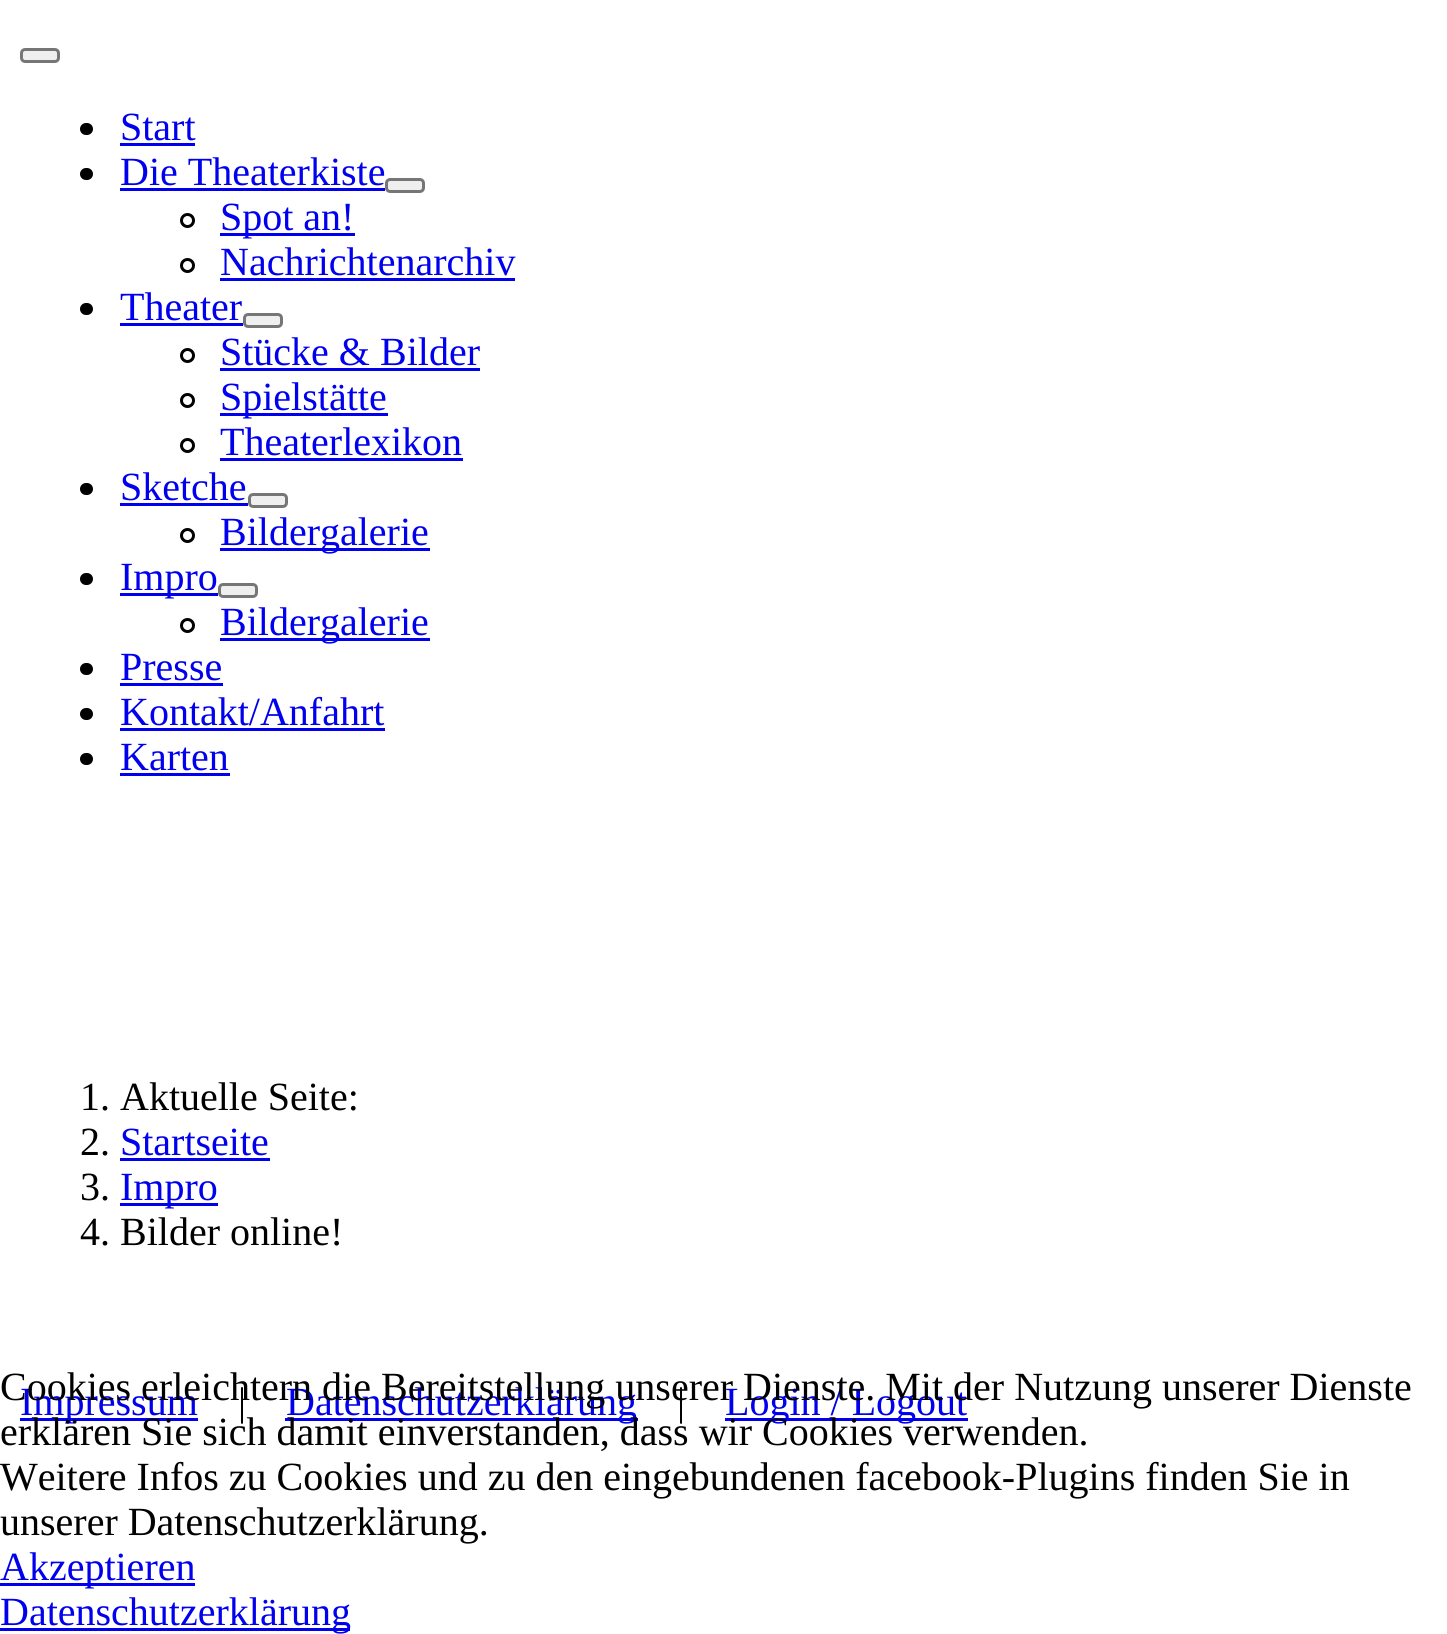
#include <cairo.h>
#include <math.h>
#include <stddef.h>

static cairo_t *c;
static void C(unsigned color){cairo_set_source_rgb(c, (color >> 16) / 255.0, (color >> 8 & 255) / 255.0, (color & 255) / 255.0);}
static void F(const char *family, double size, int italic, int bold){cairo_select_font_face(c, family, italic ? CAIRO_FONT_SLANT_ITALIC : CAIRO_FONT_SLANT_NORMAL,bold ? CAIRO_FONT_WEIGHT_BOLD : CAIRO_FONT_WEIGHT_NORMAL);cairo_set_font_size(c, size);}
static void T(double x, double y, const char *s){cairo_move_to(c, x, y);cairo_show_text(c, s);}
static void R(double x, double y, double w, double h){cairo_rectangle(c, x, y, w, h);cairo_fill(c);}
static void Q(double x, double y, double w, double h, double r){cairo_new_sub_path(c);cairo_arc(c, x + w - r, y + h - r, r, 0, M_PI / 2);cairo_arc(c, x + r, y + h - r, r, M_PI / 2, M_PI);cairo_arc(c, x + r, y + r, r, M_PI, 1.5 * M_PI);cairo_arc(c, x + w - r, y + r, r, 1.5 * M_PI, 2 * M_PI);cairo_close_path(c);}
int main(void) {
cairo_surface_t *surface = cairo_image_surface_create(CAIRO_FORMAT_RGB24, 1447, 1634);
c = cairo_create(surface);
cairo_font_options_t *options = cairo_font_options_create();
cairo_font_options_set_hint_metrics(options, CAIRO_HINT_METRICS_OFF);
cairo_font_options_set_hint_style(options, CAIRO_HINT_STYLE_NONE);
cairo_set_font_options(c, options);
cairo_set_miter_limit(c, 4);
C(0xffffff);
cairo_paint(c);
C(0xefefef);
Q(21.5,49.5,37,12,3.5);
cairo_fill_preserve(c);
C(0x767676);
cairo_set_line_width(c,3);
cairo_stroke(c);
C(0x000000);
Q(80,123,13,12,6);
cairo_fill(c);
F("Liberation Serif",40,0,0);
C(0x0000ee);
T(120,140,"Start");
R(120,143,75,3);
C(0x000000);
Q(80,168,13,12,6);
cairo_fill(c);
C(0x0000ee);
T(120,185,"Die Theaterkiste");
R(120,188,265,3);
C(0xefefef);
Q(386.5,179.5,37,12,3.5);
cairo_fill_preserve(c);
C(0x767676);
cairo_stroke(c);
cairo_arc(c,187.5,220.5,6,0,2 * M_PI);
C(0x000000);
cairo_stroke(c);
C(0x0000ee);
R(220,233,135,3);
T(220,230,"Spot an!");
cairo_new_path(c);
cairo_arc(c,187.5,265.5,6,0,2 * M_PI);
C(0x000000);
cairo_stroke(c);
C(0x0000ee);
T(220,275,"Nachrichtenarchiv");
R(220,278,295,3);
C(0x000000);
Q(80,303,13,12,6);
cairo_fill(c);
C(0x0000ee);
T(120,320,"Theater");
R(120,323,123,3);
C(0xefefef);
Q(244.5,314.5,37,12,3.5);
cairo_fill_preserve(c);
C(0x767676);
cairo_stroke(c);
cairo_arc(c,187.5,355.5,6,0,2 * M_PI);
C(0x000000);
cairo_stroke(c);
C(0x0000ee);
T(220,365,"Stücke & Bilder");
R(220,368,260,3);
cairo_new_path(c);
cairo_arc(c,187.5,400.5,6,0,2 * M_PI);
C(0x000000);
cairo_stroke(c);
C(0x0000ee);
R(220,413,168,3);
T(220,410,"Spielstätte");
cairo_new_path(c);
cairo_arc(c,187.5,445.5,6,0,2 * M_PI);
C(0x000000);
cairo_stroke(c);
C(0x0000ee);
T(220,455,"Theaterlexikon");
R(220,458,243,3);
C(0x000000);
Q(80,483,13,12,6);
cairo_fill(c);
C(0x0000ee);
T(120,500,"Sketche");
R(120,503,128,3);
C(0xefefef);
Q(249.5,494.5,37,12,3.5);
cairo_fill_preserve(c);
C(0x767676);
cairo_stroke(c);
cairo_arc(c,187.5,535.5,6,0,2 * M_PI);
C(0x000000);
cairo_stroke(c);
C(0x0000ee);
R(220,548,210,3);
T(220,545,"Bildergalerie");
C(0x000000);
Q(80,573,13,12,6);
cairo_fill(c);
C(0x0000ee);
R(120,593,98,3);
T(120,590,"Impro");
C(0xefefef);
Q(219.5,584.5,37,12,3.5);
cairo_fill_preserve(c);
C(0x767676);
cairo_stroke(c);
cairo_arc(c,187.5,625.5,6,0,2 * M_PI);
C(0x000000);
cairo_stroke(c);
C(0x0000ee);
R(220,638,210,3);
T(220,635,"Bildergalerie");
C(0x000000);
Q(80,663,13,12,6);
cairo_fill(c);
C(0x0000ee);
T(120,680,"Presse");
R(120,683,103,3);
C(0x000000);
Q(80,708,13,12,6);
cairo_fill(c);
C(0x0000ee);
T(120,725,"Kontakt/Anfahrt");
R(120,728,265,3);
C(0x000000);
Q(80,753,13,12,6);
cairo_fill(c);
C(0x0000ee);
T(120,770,"Karten");
R(120,773,110,3);
C(0x000000);
T(80,1110,"1. Aktuelle Seite:");
T(80,1155,"2.");
C(0x0000ee);
T(120,1155,"Startseite");
R(120,1158,150,3);
C(0x000000);
T(80,1200,"3.");
C(0x0000ee);
R(120,1203,98,3);
T(120,1200,"Impro");
C(0x000000);
T(80,1245,"4. Bilder online!");
C(0x0000ee);
R(20,1418,178,3);
T(20,1415,"Impressum");
C(0x000000);
T(238,1415,"|");
C(0x0000ee);
R(285,1418,353,3);
T(286,1415,"Datenschutzerklärung");
C(0x000000);
T(677,1415,"|");
C(0x0000ee);
R(725,1418,243,3);
T(725,1415,"Login / Logout");
C(0x000000);
T(0,1400,"Cookies erleichtern die Bereitstellung unserer Dienste. Mit der Nutzung unserer Dienste");
T(0,1445,"erklären Sie sich damit einverstanden, dass wir Cookies verwenden.");
T(0,1490,"Weitere Infos zu Cookies und zu den eingebundenen facebook-Plugins finden Sie in");
T(0,1535,"unserer Datenschutzerklärung.");
C(0x0000ee);
R(0,1583,195,3);
T(0,1580,"Akzeptieren");
R(0,1628,350,3);
T(0,1625,"Datenschutzerklärung");
cairo_surface_write_to_png(surface, "o.png");
cairo_font_options_destroy(options);
cairo_destroy(c);
cairo_surface_destroy(surface);
return 0;
}
